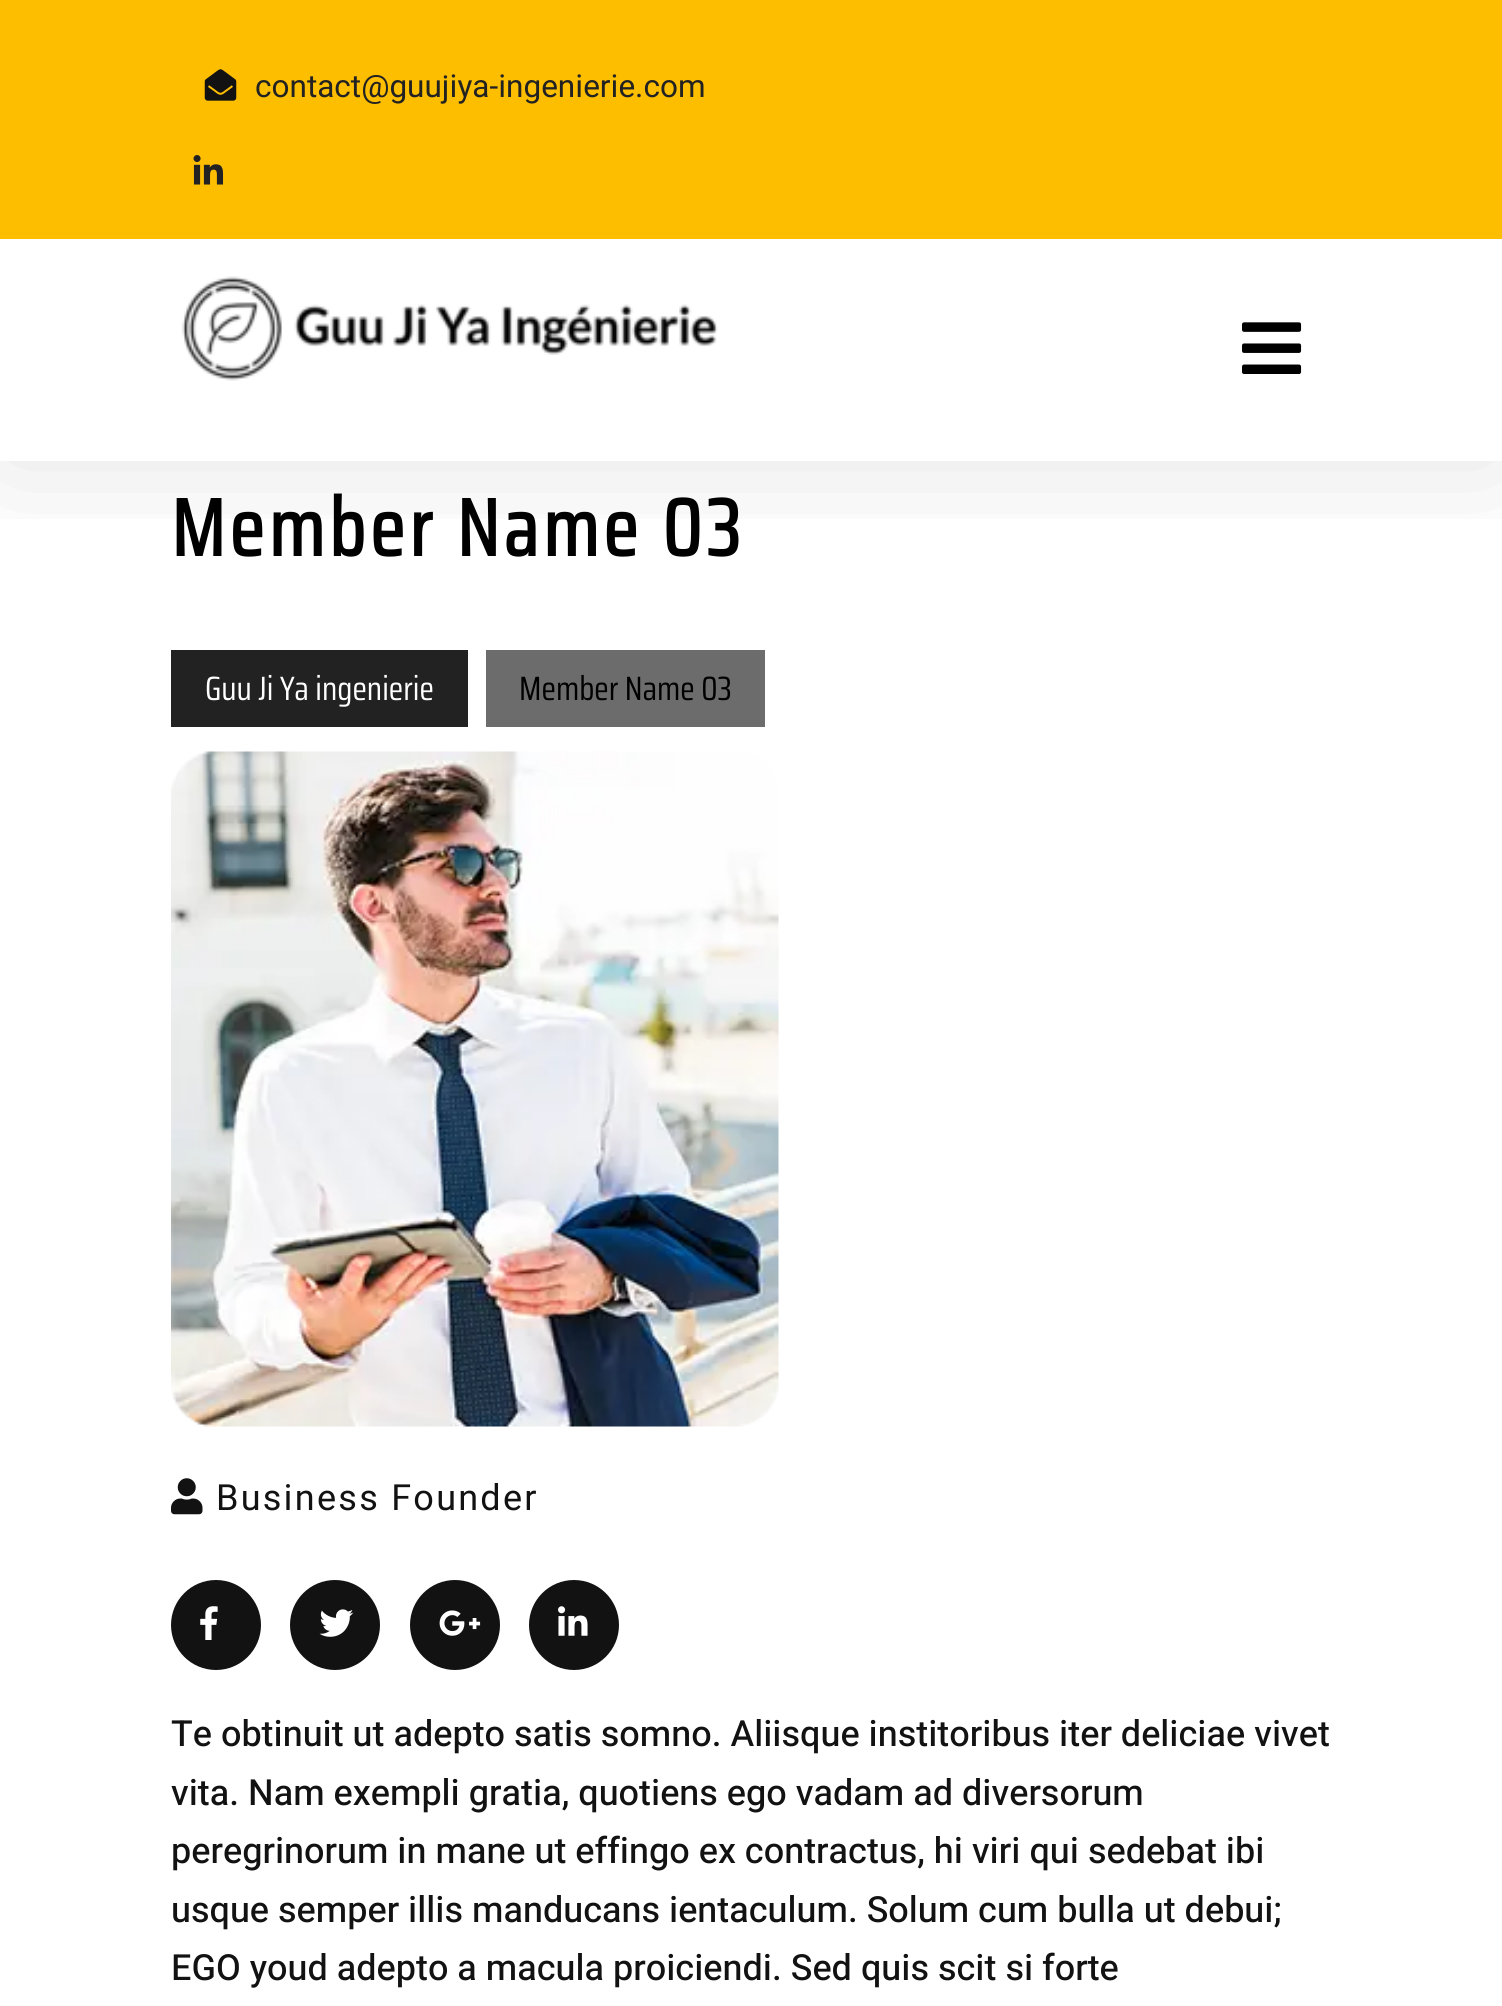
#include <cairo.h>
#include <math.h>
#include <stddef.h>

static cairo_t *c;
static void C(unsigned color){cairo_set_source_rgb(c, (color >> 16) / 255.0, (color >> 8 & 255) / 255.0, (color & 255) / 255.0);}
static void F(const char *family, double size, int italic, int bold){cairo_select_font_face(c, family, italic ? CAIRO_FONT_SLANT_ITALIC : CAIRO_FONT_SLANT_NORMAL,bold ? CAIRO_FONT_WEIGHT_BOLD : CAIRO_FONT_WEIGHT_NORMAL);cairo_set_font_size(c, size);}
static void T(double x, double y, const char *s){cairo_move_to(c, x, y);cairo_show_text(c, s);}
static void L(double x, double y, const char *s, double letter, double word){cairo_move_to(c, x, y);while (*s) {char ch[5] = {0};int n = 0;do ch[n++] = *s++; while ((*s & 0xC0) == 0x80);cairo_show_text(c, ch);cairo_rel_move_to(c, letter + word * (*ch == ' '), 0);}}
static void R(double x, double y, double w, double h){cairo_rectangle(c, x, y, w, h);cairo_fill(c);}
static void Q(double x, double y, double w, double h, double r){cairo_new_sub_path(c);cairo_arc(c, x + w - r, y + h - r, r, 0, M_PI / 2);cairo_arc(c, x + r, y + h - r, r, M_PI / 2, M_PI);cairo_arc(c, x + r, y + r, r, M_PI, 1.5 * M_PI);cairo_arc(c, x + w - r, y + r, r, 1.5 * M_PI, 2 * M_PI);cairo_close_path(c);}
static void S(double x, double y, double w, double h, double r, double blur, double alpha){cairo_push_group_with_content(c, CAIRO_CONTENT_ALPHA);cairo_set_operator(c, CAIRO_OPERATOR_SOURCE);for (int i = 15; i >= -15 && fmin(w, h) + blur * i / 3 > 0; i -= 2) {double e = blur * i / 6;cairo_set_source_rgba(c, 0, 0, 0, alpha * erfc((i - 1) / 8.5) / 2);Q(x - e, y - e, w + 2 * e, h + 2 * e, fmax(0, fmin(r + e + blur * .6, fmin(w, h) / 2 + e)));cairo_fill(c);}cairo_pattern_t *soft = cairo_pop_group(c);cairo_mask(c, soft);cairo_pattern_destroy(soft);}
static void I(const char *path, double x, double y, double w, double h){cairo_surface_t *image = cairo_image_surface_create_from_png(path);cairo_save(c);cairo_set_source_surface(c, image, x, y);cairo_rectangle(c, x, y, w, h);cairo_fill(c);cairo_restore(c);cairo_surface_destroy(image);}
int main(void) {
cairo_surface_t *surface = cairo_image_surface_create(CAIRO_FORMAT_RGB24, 1502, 2006);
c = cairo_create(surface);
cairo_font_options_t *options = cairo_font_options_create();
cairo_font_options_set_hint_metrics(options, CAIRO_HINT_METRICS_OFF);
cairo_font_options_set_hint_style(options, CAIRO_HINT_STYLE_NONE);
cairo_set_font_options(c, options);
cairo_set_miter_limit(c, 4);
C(0xffffff);
cairo_paint(c);
cairo_save(c);
cairo_rectangle(c,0,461,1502,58);
cairo_clip(c);
C(0x000000);
S(0,0,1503,461,0,64,.11);
cairo_restore(c);
C(0xfebe00);
R(0,0,1502,239);
I("1.png",204,69,33,32);
F("Heebo",31.5,0,0);
C(0x222222);
T(255,97,"contact@guujiya-ingenierie.com");
I("2.png",193,155,31,30);
I("3.png",181,276,537,105);
I("4.png",1242,322,60,52);
F("Saira Condensed",81,0,1);
C(0x000000);
L(171,556,"Member Name 03",4.5,0);
C(0x222222);
R(171,650,297,77);
F("Saira Condensed",33.75,0,0);
C(0xffffff);
T(205,700,"Guu Ji Ya ingenierie");
C(0x6c6c6c);
R(486,650,279,77);
C(0x000000);
T(519,700,"Member Name 03");
I("5.png",171,751,608,676);
I("6.png",171,1478,32,37);
F("Heebo",36,0,0);
C(0x121212);
L(216,1510,"Business Founder",2.25,0);
cairo_new_path(c);
cairo_arc(c,216,1625,45,0,2 * M_PI);
cairo_fill(c);
I("7.png",200,1606,18,34);
cairo_arc(c,335,1625,45,0,2 * M_PI);
cairo_fill(c);
I("8.png",319,1609,35,28);
cairo_arc(c,455,1625,45,0,2 * M_PI);
cairo_fill(c);
I("9.png",439,1610,42,26);
cairo_arc(c,574,1625,45,0,2 * M_PI);
cairo_fill(c);
I("10.png",558,1606,30,30);
F("Heebo Medium",36,0,0);
T(171,1746,"Te obtinuit ut adepto satis somno. Aliisque institoribus iter deliciae vivet");
T(171,1805,"vita. Nam exempli gratia, quotiens ego vadam ad diversorum");
T(171,1863,"peregrinorum in mane ut effingo ex contractus, hi viri qui sedebat ibi");
T(171,1922,"usque semper illis manducans ientaculum. Solum cum bulla ut debui;");
T(171,1980,"EGO youd adepto a macula proiciendi. Sed quis scit si forte");
cairo_surface_write_to_png(surface, "o.png");
cairo_font_options_destroy(options);
cairo_destroy(c);
cairo_surface_destroy(surface);
return 0;
}
